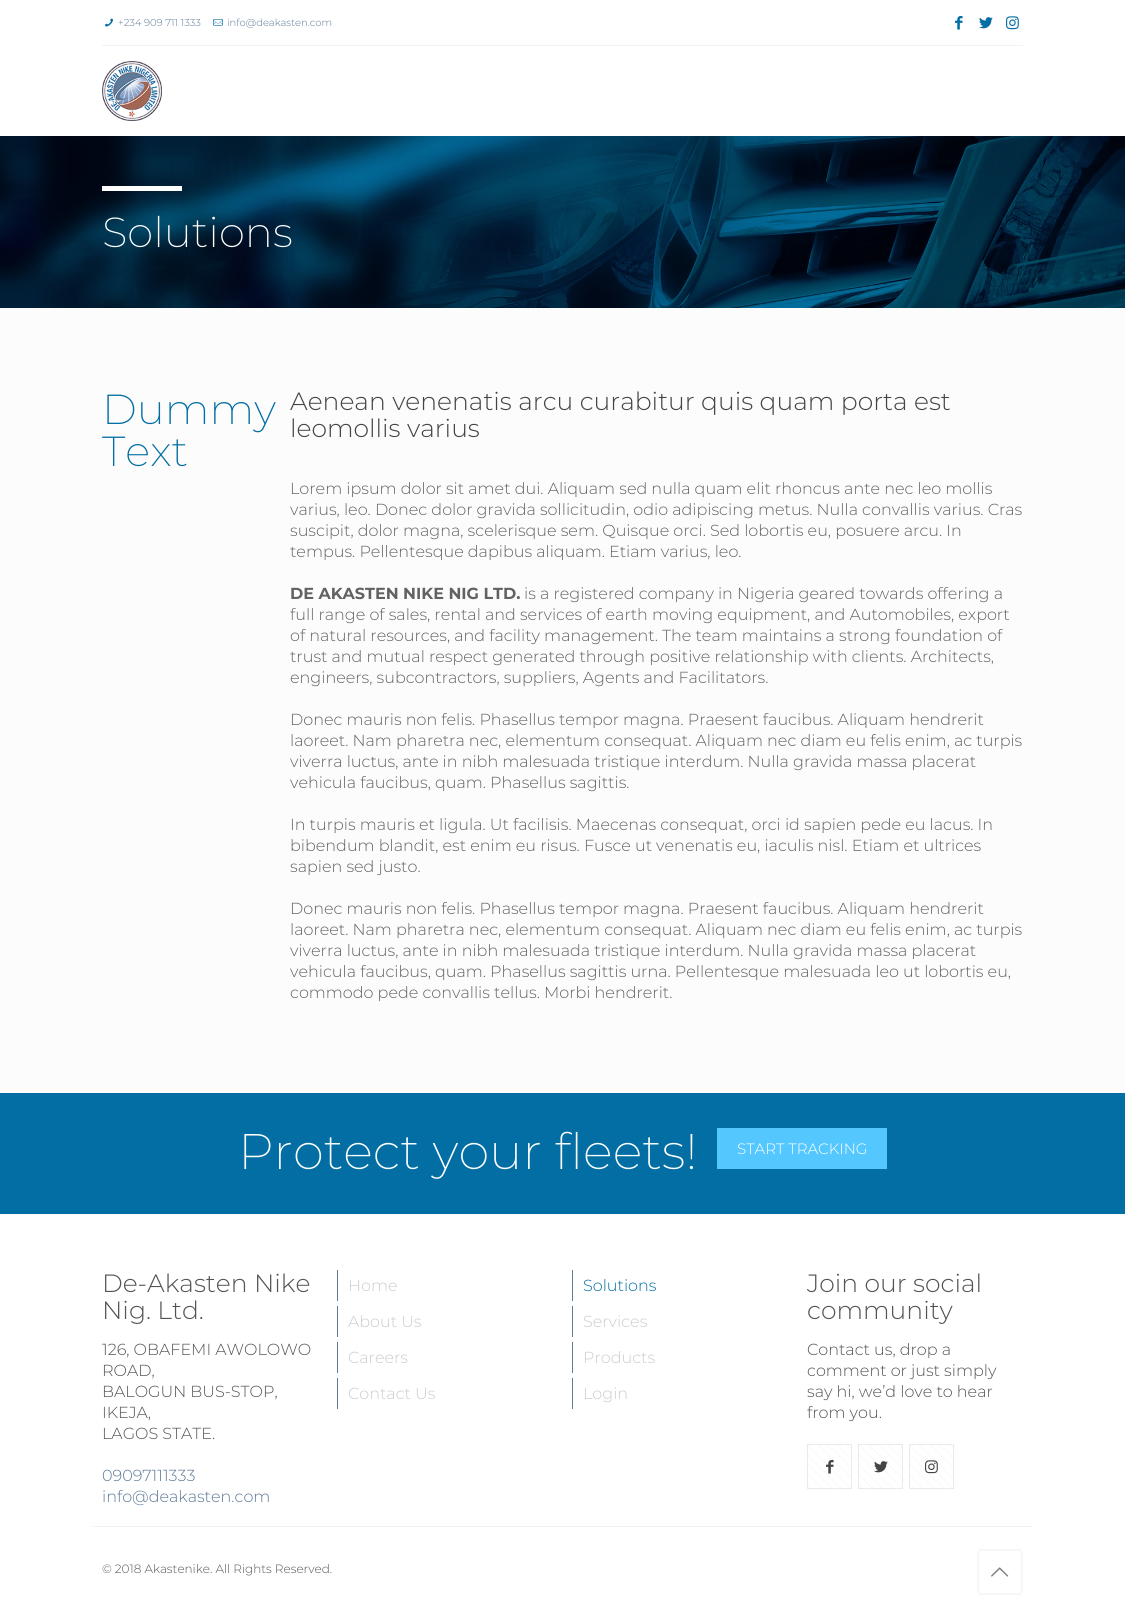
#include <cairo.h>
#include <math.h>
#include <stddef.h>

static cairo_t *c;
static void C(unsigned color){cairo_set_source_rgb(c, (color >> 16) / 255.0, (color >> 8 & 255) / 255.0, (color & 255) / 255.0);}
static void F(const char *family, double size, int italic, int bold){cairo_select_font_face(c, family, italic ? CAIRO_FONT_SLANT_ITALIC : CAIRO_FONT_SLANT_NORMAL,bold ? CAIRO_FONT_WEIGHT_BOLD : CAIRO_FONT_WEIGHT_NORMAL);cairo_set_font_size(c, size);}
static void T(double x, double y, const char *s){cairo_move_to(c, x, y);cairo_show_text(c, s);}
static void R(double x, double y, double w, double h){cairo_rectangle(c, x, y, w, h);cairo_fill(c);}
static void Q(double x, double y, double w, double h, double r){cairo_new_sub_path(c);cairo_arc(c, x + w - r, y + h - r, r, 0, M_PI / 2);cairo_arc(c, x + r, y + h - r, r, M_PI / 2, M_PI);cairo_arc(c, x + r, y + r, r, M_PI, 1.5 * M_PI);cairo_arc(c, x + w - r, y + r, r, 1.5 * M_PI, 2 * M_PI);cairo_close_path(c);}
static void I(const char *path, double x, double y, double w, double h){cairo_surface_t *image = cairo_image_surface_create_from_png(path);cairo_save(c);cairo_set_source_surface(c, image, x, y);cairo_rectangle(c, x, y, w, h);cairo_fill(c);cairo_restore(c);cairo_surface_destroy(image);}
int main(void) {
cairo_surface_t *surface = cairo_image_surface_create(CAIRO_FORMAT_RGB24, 1125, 1615);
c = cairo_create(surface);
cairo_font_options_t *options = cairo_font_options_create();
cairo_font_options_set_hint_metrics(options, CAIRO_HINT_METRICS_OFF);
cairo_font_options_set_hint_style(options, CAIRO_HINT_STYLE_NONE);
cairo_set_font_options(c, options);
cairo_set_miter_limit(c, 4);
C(0xfcfcfc);
cairo_paint(c);
C(0xffffff);
R(0,0,1125,136);
C(0xf2f2f2);
R(102,45,921,1);
I("1.png",105,18,8,9);
F("Montserrat Light",10,0,0);
C(0x5d7a97);
T(118,26,"+234 909 711 1333");
I("2.png",213,19,10,7);
T(227,26,"info@deakasten.com");
I("3.png",955,16,8,14);
I("4.png",979,17,14,12);
I("5.png",1006,16,13,14);
I("6.png",102,61,60,60);
I("7.png",0,136,1125,172);
C(0xffffff);
R(102,186,80,5);
F("Montserrat ExtraLight",42,0,0);
T(102,247,"Solutions");
C(0x026ea3);
T(102,424,"Dummy");
T(102,466,"Text");
F("Montserrat Light",25,0,0);
C(0x444444);
T(290,410,"Aenean venenatis arcu curabitur quis quam porta est");
T(290,437,"leomollis varius");
F("Montserrat Light",16,0,0);
C(0x626262);
T(290,494,"Lorem ipsum dolor sit amet dui. Aliquam sed nulla quam elit rhoncus ante nec leo mollis");
T(290,515,"varius, leo. Donec dolor gravida sollicitudin, odio adipiscing metus. Nulla convallis varius. Cras");
T(290,536,"suscipit, dolor magna, scelerisque sem. Quisque orci. Sed lobortis eu, posuere arcu. In");
T(290,557,"tempus. Pellentesque dapibus aliquam. Etiam varius, leo.");
F("Montserrat",16,0,1);
T(290,599,"DE AKASTEN NIKE NIG LTD.");
F("Montserrat Light",16,0,0);
T(524,599,"is a registered company in Nigeria geared towards offering a");
T(290,620,"full range of sales, rental and services of earth moving equipment, and Automobiles, export");
T(290,641,"of natural resources, and facility management. The team maintains a strong foundation of");
T(290,662,"trust and mutual respect generated through positive relationship with clients. Architects,");
T(290,683,"engineers, subcontractors, suppliers, Agents and Facilitators.");
T(290,725,"Donec mauris non felis. Phasellus tempor magna. Praesent faucibus. Aliquam hendrerit");
T(290,746,"laoreet. Nam pharetra nec, elementum consequat. Aliquam nec diam eu felis enim, ac turpis");
T(290,767,"viverra luctus, ante in nibh malesuada tristique interdum. Nulla gravida massa placerat");
T(290,788,"vehicula faucibus, quam. Phasellus sagittis.");
T(290,830,"In turpis mauris et ligula. Ut facilisis. Maecenas consequat, orci id sapien pede eu lacus. In");
T(290,851,"bibendum blandit, est enim eu risus. Fusce ut venenatis eu, iaculis nisl. Etiam et ultrices");
T(290,872,"sapien sed justo.");
T(290,914,"Donec mauris non felis. Phasellus tempor magna. Praesent faucibus. Aliquam hendrerit");
T(290,935,"laoreet. Nam pharetra nec, elementum consequat. Aliquam nec diam eu felis enim, ac turpis");
T(290,956,"viverra luctus, ante in nibh malesuada tristique interdum. Nulla gravida massa placerat");
T(290,977,"vehicula faucibus, quam. Phasellus sagittis urna. Pellentesque malesuada leo ut lobortis eu,");
T(290,998,"commodo pede convallis tellus. Morbi hendrerit.");
C(0x026ea3);
R(0,1093,1125,121);
F("Montserrat ExtraLight",50,0,0);
C(0xffffff);
T(238,1169,"Protect your fleets!");
C(0x54c7ff);
R(717,1128,170,41);
F("Montserrat Light",15,0,0);
C(0xffffff);
T(737,1154,"START TRACKING");
R(0,1215,1125,400);
C(0xf2f2f2);
R(93,1526,940,1);
F("Montserrat Light",25,0,0);
C(0x545454);
T(102,1292,"De-Akasten Nike");
T(102,1319,"Nig. Ltd.");
F("Montserrat Light",16,0,0);
T(102,1355,"126, OBAFEMI AWOLOWO");
T(102,1376,"ROAD,");
T(102,1397,"BALOGUN BUS-STOP,");
T(102,1418,"IKEJA,");
T(102,1439,"LAGOS STATE.");
C(0x5d7a97);
T(102,1481,"09097111333");
T(102,1502,"info@deakasten.com");
R(337,1270,1,31);
C(0xcccccc);
T(348,1291,"Home");
C(0x5d7a97);
R(337,1306,1,31);
C(0xcccccc);
T(348,1327,"About Us");
C(0x5d7a97);
R(337,1342,1,31);
C(0xcccccc);
T(348,1363,"Careers");
C(0x5d7a97);
R(337,1378,1,31);
C(0xcccccc);
T(348,1399,"Contact Us");
C(0x5d7a97);
R(572,1270,1,31);
C(0x026ea3);
T(583,1291,"Solutions");
C(0x5d7a97);
R(572,1306,1,31);
C(0xcccccc);
T(583,1327,"Services");
C(0x5d7a97);
R(572,1342,1,31);
C(0xcccccc);
T(583,1363,"Products");
C(0x5d7a97);
R(572,1378,1,31);
C(0xcccccc);
T(583,1399,"Login");
F("Montserrat Light",25,0,0);
C(0x545454);
T(807,1292,"Join our social");
T(807,1319,"community");
F("Montserrat Light",16,0,0);
T(807,1355,"Contact us, drop a");
T(807,1376,"comment or just simply");
T(807,1397,"say hi, we’d love to hear");
T(807,1418,"from you.");
I("8.png",807,1444,45,45);
cairo_rectangle(c,807.5,1444.5,44,44);
cairo_set_source_rgba(c,0,0,0,0.08);
cairo_set_line_width(c,1);
cairo_stroke(c);
I("9.png",826,1460,8,14);
I("8.png",858,1444,45,45);
cairo_rectangle(c,858.5,1444.5,44,44);
cairo_stroke(c);
I("10.png",874,1461,14,12);
I("8.png",909,1444,45,45);
cairo_rectangle(c,909.5,1444.5,44,44);
cairo_stroke(c);
I("11.png",925,1460,13,14);
F("Montserrat Light",12,0,0);
C(0x545454);
T(102,1573,"© 2018 Akastenike. All Rights Reserved.");
Q(978,1550,44,44,2);
C(0xf7f7f7);
cairo_set_line_width(c,2);
cairo_stroke(c);
I("12.png",991,1567,18,10);
cairo_surface_write_to_png(surface, "o.png");
cairo_font_options_destroy(options);
cairo_destroy(c);
cairo_surface_destroy(surface);
return 0;
}
